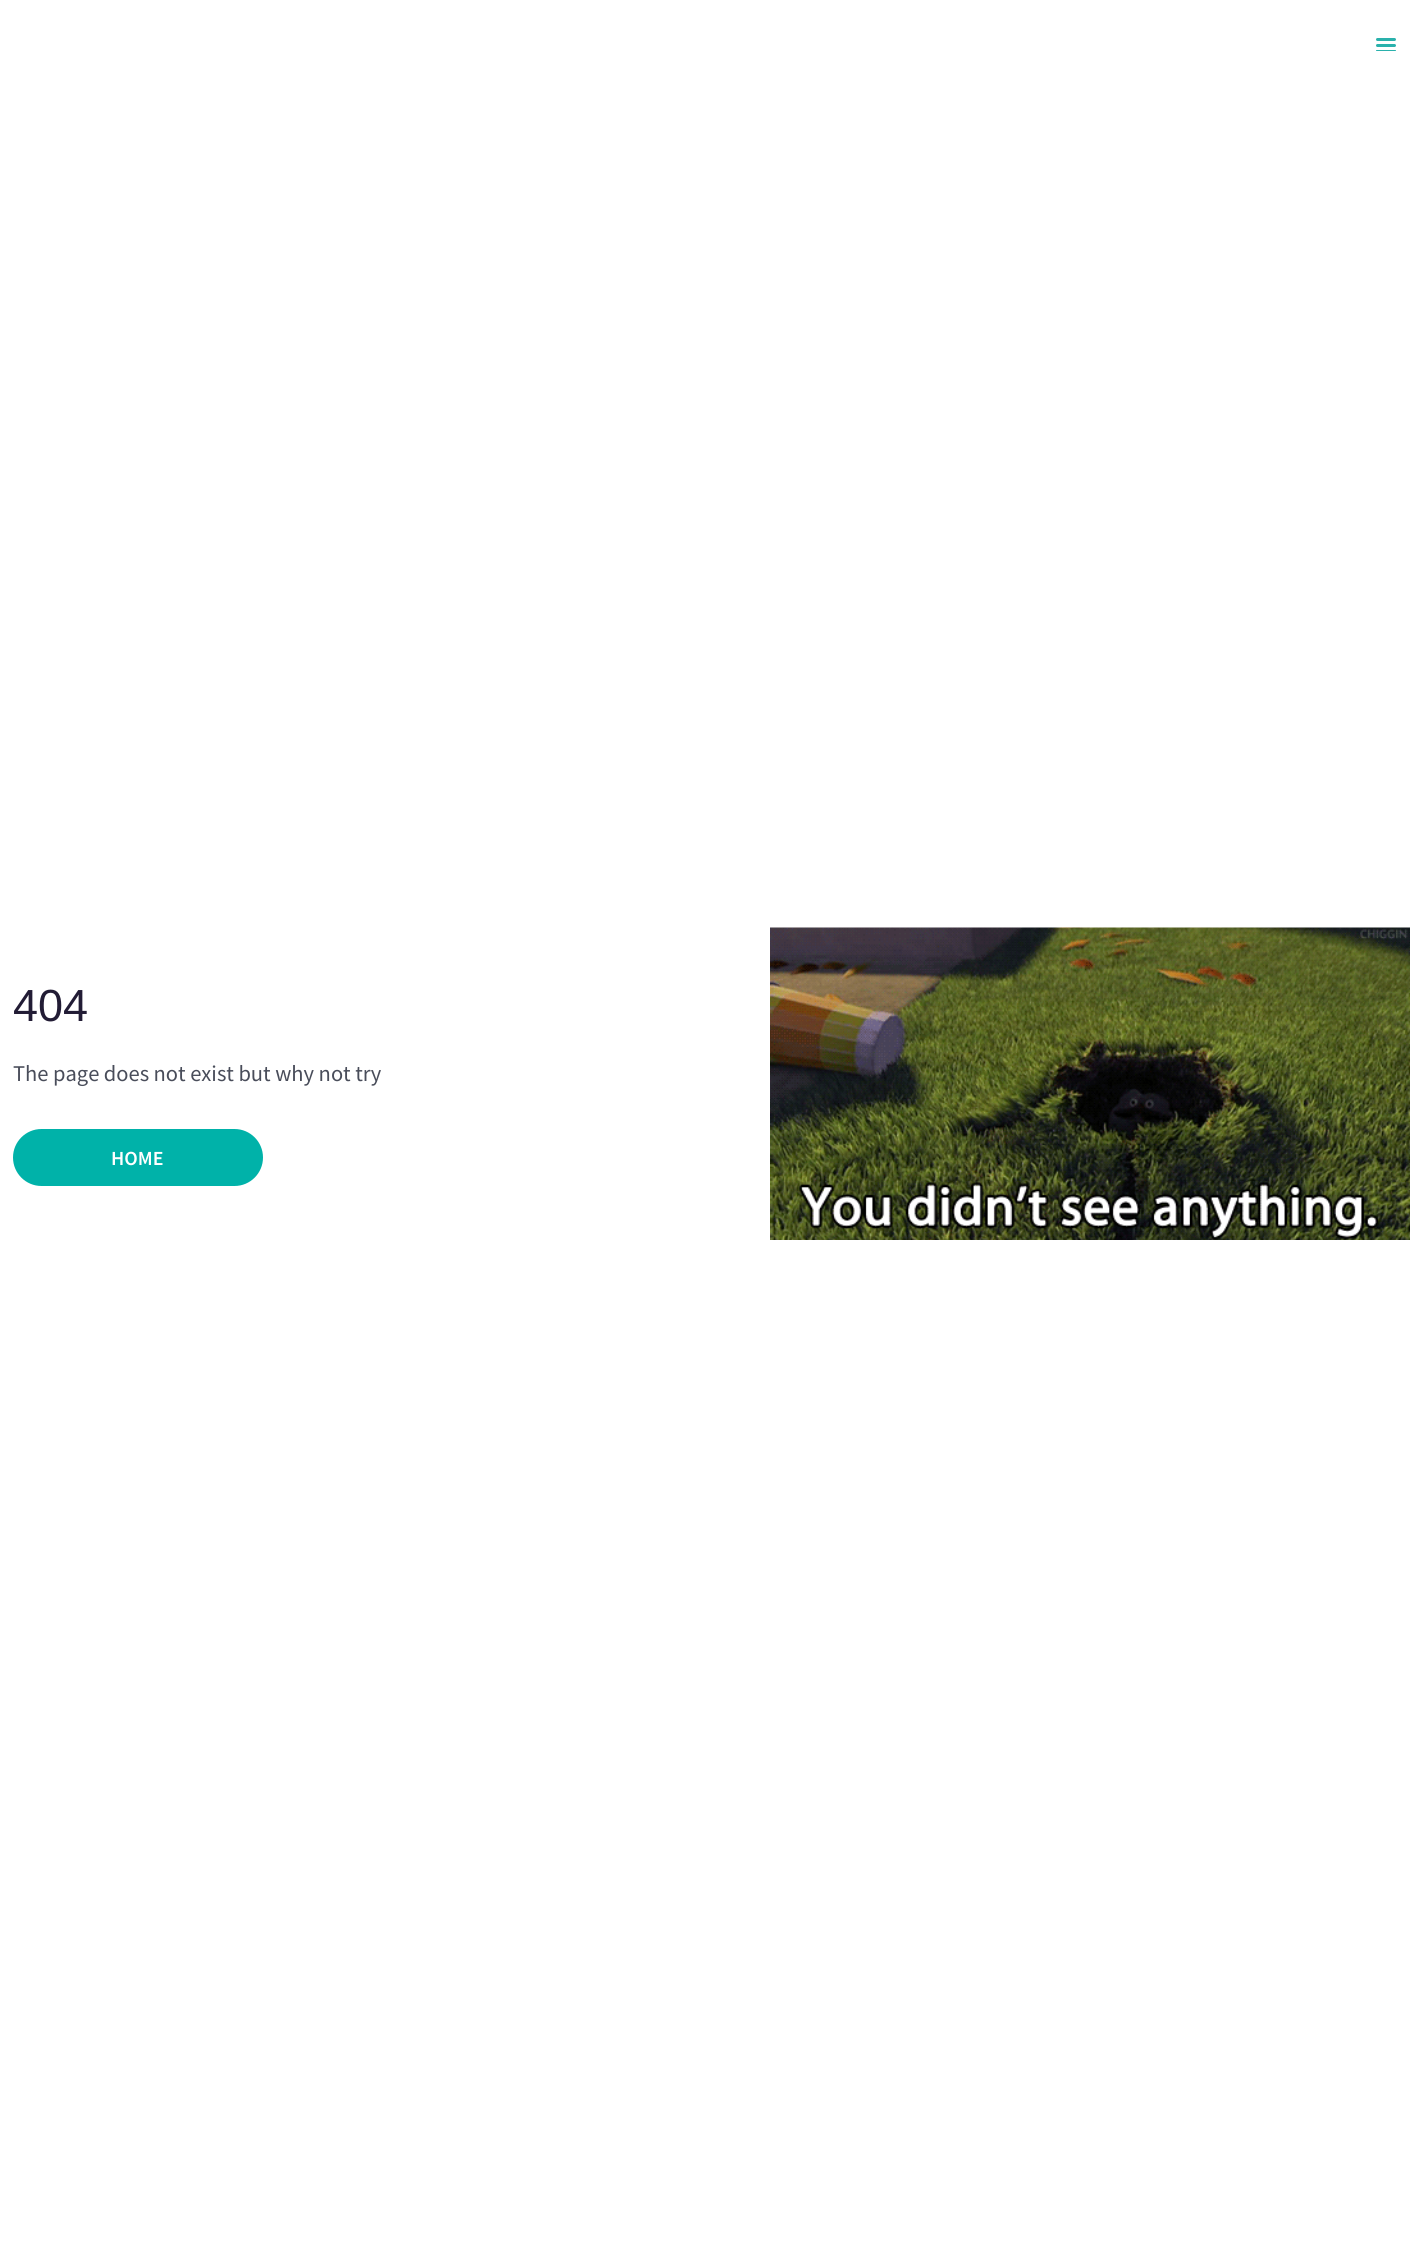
#include <cairo.h>
#include <math.h>
#include <stddef.h>

static cairo_t *c;
static void C(unsigned color){cairo_set_source_rgb(c, (color >> 16) / 255.0, (color >> 8 & 255) / 255.0, (color & 255) / 255.0);}
static void F(const char *family, double size, int italic, int bold){cairo_select_font_face(c, family, italic ? CAIRO_FONT_SLANT_ITALIC : CAIRO_FONT_SLANT_NORMAL,bold ? CAIRO_FONT_WEIGHT_BOLD : CAIRO_FONT_WEIGHT_NORMAL);cairo_set_font_size(c, size);}
static void T(double x, double y, const char *s){cairo_move_to(c, x, y);cairo_show_text(c, s);}
static void Q(double x, double y, double w, double h, double r){cairo_new_sub_path(c);cairo_arc(c, x + w - r, y + h - r, r, 0, M_PI / 2);cairo_arc(c, x + r, y + h - r, r, M_PI / 2, M_PI);cairo_arc(c, x + r, y + r, r, M_PI, 1.5 * M_PI);cairo_arc(c, x + w - r, y + r, r, 1.5 * M_PI, 2 * M_PI);cairo_close_path(c);}
static void I(const char *path, double x, double y, double w, double h){cairo_surface_t *image = cairo_image_surface_create_from_png(path);cairo_save(c);cairo_set_source_surface(c, image, x, y);cairo_rectangle(c, x, y, w, h);cairo_fill(c);cairo_restore(c);cairo_surface_destroy(image);}
int main(void) {
cairo_surface_t *surface = cairo_image_surface_create(CAIRO_FORMAT_RGB24, 1422, 2250);
c = cairo_create(surface);
cairo_font_options_t *options = cairo_font_options_create();
cairo_font_options_set_hint_metrics(options, CAIRO_HINT_METRICS_OFF);
cairo_font_options_set_hint_style(options, CAIRO_HINT_STYLE_NONE);
cairo_set_font_options(c, options);
cairo_set_miter_limit(c, 4);
C(0xffffff);
cairo_paint(c);
C(0x2ab1ac);
Q(1376,38,20,3,1.5);
cairo_fill(c);
Q(1376,44,20,3,1.5);
cairo_fill(c);
Q(1376,50,20,1,.5);
cairo_fill(c);
F("Liberation Sans",45,0,0);
C(0x221c35);
T(13,1021,"404");
F("Source Sans Pro",22.5,0,0);
C(0x494d5a);
T(13,1081,"The page does not exist but why not try");
C(0x00b2a9);
Q(14.5,1130.5,247,54,27);
cairo_fill_preserve(c);
cairo_set_line_width(c,3);
cairo_stroke(c);
F("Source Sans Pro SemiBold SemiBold",20,0,0);
C(0xffffff);
T(111,1165,"HOME");
I("1.png",770,927,640,313);
cairo_surface_write_to_png(surface, "o.png");
cairo_font_options_destroy(options);
cairo_destroy(c);
cairo_surface_destroy(surface);
return 0;
}
